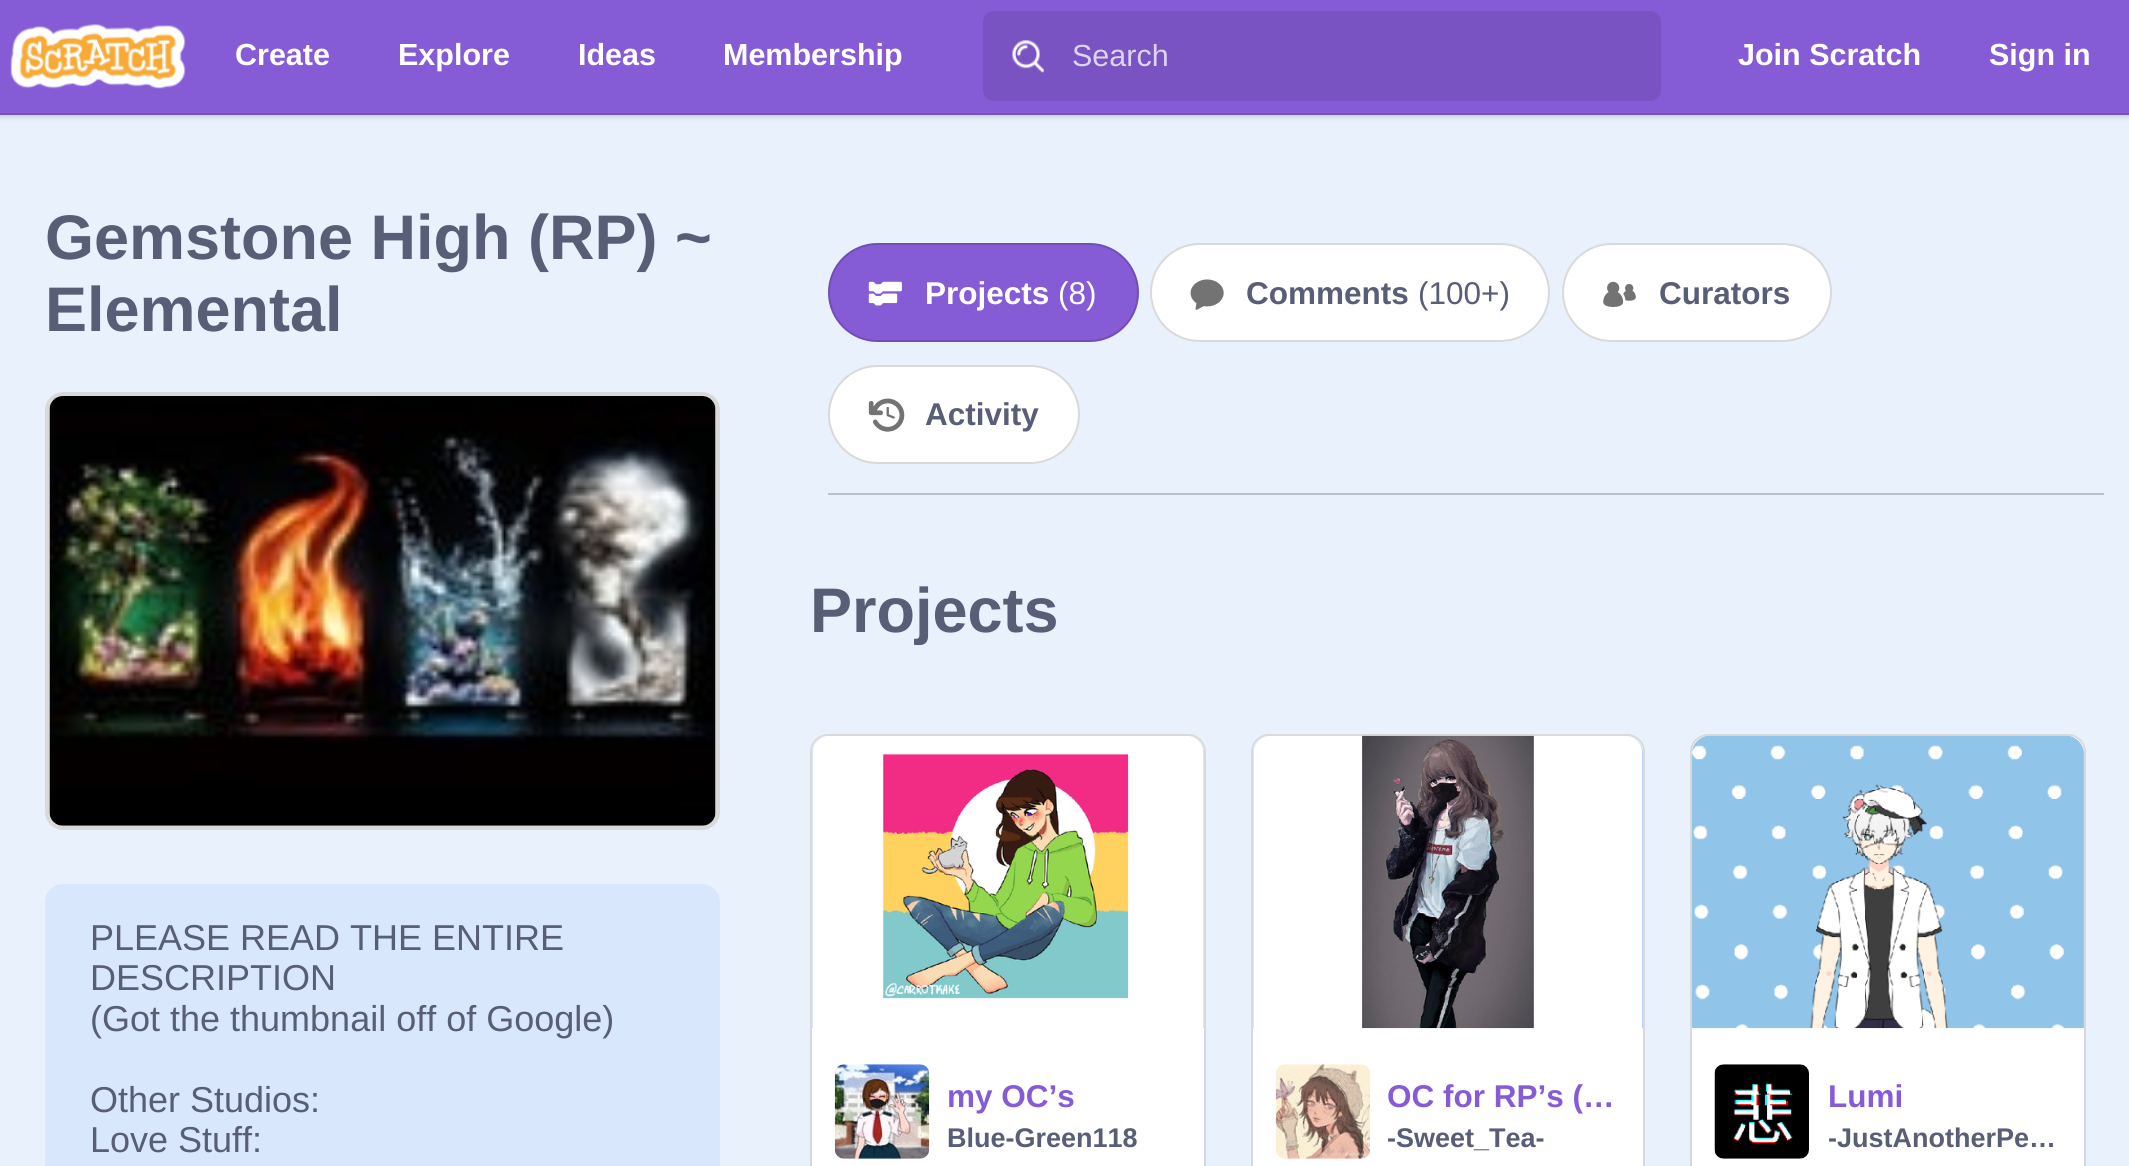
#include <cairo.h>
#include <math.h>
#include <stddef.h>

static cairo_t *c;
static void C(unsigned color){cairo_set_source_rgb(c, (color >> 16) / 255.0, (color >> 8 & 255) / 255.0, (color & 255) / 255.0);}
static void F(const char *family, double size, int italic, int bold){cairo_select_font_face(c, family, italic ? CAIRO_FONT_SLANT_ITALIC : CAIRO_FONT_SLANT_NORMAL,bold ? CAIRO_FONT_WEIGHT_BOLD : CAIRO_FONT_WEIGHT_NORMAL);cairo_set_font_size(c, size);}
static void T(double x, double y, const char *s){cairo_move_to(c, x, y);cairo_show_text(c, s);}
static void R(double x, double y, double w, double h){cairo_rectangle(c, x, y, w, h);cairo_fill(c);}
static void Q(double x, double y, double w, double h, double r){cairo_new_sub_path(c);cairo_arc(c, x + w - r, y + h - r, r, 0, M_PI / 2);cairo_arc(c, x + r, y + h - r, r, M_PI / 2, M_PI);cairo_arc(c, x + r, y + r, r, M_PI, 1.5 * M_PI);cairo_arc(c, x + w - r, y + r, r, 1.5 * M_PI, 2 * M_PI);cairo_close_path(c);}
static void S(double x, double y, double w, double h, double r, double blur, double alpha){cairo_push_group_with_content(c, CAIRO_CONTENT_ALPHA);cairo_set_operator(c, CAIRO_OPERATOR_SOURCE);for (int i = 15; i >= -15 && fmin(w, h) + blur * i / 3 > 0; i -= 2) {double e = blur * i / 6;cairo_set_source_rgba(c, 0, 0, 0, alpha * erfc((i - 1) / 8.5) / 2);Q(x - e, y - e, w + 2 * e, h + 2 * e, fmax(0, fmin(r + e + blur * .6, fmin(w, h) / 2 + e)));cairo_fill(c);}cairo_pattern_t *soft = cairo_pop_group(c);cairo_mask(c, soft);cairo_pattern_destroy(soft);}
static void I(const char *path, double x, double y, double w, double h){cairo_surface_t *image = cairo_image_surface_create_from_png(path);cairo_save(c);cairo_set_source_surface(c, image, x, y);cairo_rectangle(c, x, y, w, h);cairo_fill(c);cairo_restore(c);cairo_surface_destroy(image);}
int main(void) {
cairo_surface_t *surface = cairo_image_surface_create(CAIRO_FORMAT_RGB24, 2129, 1166);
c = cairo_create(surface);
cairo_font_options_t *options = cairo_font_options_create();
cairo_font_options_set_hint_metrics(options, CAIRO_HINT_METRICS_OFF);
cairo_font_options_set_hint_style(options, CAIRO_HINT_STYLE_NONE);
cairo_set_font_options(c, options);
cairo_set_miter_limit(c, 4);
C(0xe9f1fc);
cairo_paint(c);
C(0x000000);
S(0,0,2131,115,0,3.5,.25);
C(0x855cd6);
R(0,0,2129,113);
C(0x7853c1);
R(0,113,2129,2);
I("1.png",10,24,176,65);
F("Liberation Sans",30.5,0,1);
C(0xffffff);
T(235,65,"Create");
T(398,65,"Explore");
T(578,65,"Ideas");
T(723,65,"Membership");
C(0x7853c1);
Q(983,11,678,90,11);
cairo_fill(c);
I("2.png",1012,40,32,33);
F("Liberation Sans",30.5,0,0);
C(0xddd4f0);
T(1072,66,"Search");
F("Liberation Sans",30.5,0,1);
C(0xffffff);
T(1738,65,"Join Scratch");
T(1989,65,"Sign in");
F("Liberation Sans",63,0,1);
C(0x575e75);
T(45,259,"Gemstone High (RP) ~");
T(45,331,"Elemental");
C(0xffffff);
Q(45,392,675,438,18);
cairo_fill(c);
Q(47.5,394.5,670,433,15.5);
cairo_set_source_rgba(c,0,0,0,0.15);
cairo_set_line_width(c,5);
cairo_stroke(c);
I("3.png",49,396,667,430);
C(0xd9e7fc);
Q(45,884,675,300,18);
cairo_fill(c);
F("Liberation Sans",36,0,0);
C(0x575e75);
T(90,950,"PLEASE READ THE ENTIRE");
T(90,990,"DESCRIPTION");
T(90,1031,"(Got the thumbnail off of Google)");
T(90,1112,"Other Studios:");
T(90,1152,"Love Stuff:");
C(0xbac1ca);
R(828,493,1276,2);
C(0x855cd6);
Q(828,243,311,99,49.5);
cairo_fill(c);
Q(829,244,309,97,48.5);
cairo_set_source_rgba(c,0,0,0,0.15);
cairo_set_line_width(c,2);
cairo_stroke(c);
I("4.png",868,281,34,25);
F("Liberation Sans",31.5,0,1);
C(0xffffff);
T(925,304,"Projects");
F("Liberation Sans",31.5,0,0);
T(1058,304,"(8)");
Q(1150,243,400,99,49.5);
cairo_fill(c);
Q(1151,244,398,97,48.5);
cairo_set_source_rgba(c,0,0,0,0.15);
cairo_stroke(c);
I("5.png",1190,279,34,31);
F("Liberation Sans",31.5,0,1);
C(0x575e75);
T(1246,304,"Comments");
F("Liberation Sans",31.5,0,0);
T(1418,304,"(100+)");
C(0xffffff);
Q(1562,243,270,99,49.5);
cairo_fill(c);
Q(1563,244,268,97,48.5);
cairo_set_source_rgba(c,0,0,0,0.15);
cairo_stroke(c);
I("6.png",1603,281,33,26);
F("Liberation Sans",31.5,0,1);
C(0x575e75);
T(1659,304,"Curators");
C(0xffffff);
Q(828,365,252,99,49.5);
cairo_fill(c);
Q(829,366,250,97,48.5);
cairo_set_source_rgba(c,0,0,0,0.15);
cairo_stroke(c);
I("7.png",868,398,37,34);
C(0x575e75);
T(925,425,"Activity");
F("Liberation Sans",63,0,1);
T(810,632,"Projects");
C(0xffffff);
Q(811,735,394,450,17);
cairo_fill_preserve(c);
C(0xd9d9d9);
cairo_stroke(c);
C(0xa0c6fc);
cairo_new_path(c);
cairo_move_to(c,830,736);
cairo_line_to(c,1186,736);
cairo_curve_to(c,1196,736,1204,744,1204,754);
cairo_line_to(c,1204,1028);
cairo_line_to(c,812,1028);
cairo_line_to(c,812,754);
cairo_curve_to(c,812,744,820,736,830,736);
cairo_close_path(c);
cairo_fill(c);
I("8.png",812,736,392,292);
I("9.png",834,1064,96,95);
F("Liberation Sans",31.5,0,1);
C(0x855cd6);
T(947,1107,"my OC’s");
F("Liberation Sans",27,0,1);
C(0x575e75);
T(947,1147,"Blue-Green118");
C(0xffffff);
Q(1252,735,392,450,17);
cairo_fill_preserve(c);
C(0xd9d9d9);
cairo_stroke(c);
C(0xa0c6fc);
cairo_new_path(c);
cairo_move_to(c,1271,736);
cairo_line_to(c,1625,736);
cairo_curve_to(c,1635,736,1643,744,1643,754);
cairo_line_to(c,1643,1028);
cairo_line_to(c,1253,1028);
cairo_line_to(c,1253,754);
cairo_curve_to(c,1253,744,1261,736,1271,736);
cairo_close_path(c);
cairo_fill(c);
I("10.png",1253,735,390,294);
I("11.png",1275,1064,96,95);
F("Liberation Sans",31.5,0,1);
C(0x855cd6);
T(1387,1107,"OC for RP’s (…");
F("Liberation Sans",27,0,1);
C(0x575e75);
T(1387,1147,"-Sweet_Tea-");
C(0xffffff);
Q(1691,735,394,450,17);
cairo_fill_preserve(c);
C(0xd9d9d9);
cairo_stroke(c);
C(0xa0c6fc);
cairo_new_path(c);
cairo_move_to(c,1710,736);
cairo_line_to(c,2066,736);
cairo_curve_to(c,2076,736,2084,744,2084,754);
cairo_line_to(c,2084,1028);
cairo_line_to(c,1692,1028);
cairo_line_to(c,1692,754);
cairo_curve_to(c,1692,744,1700,736,1710,736);
cairo_close_path(c);
cairo_fill(c);
I("12.png",1692,735,392,294);
I("13.png",1714,1064,95,95);
F("Liberation Sans",31.5,0,1);
C(0x855cd6);
T(1828,1107,"Lumi");
F("Liberation Sans",27,0,1);
C(0x575e75);
T(1828,1147,"-JustAnotherPe…");
cairo_surface_write_to_png(surface, "o.png");
cairo_font_options_destroy(options);
cairo_destroy(c);
cairo_surface_destroy(surface);
return 0;
}
